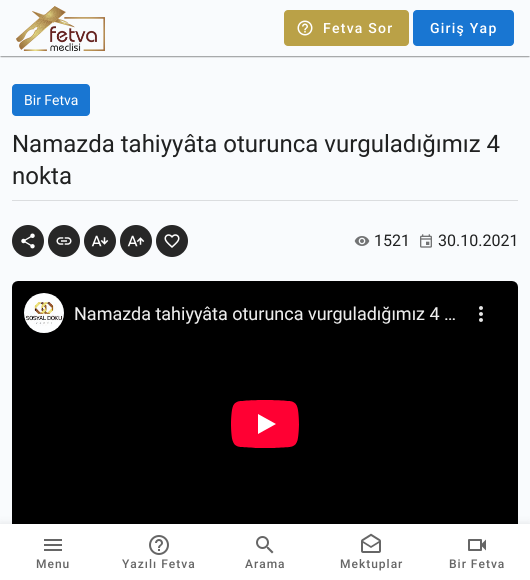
#include <cairo.h>
#include <math.h>
#include <stddef.h>

static cairo_t *c;
static void C(unsigned color){cairo_set_source_rgb(c, (color >> 16) / 255.0, (color >> 8 & 255) / 255.0, (color & 255) / 255.0);}
static void F(const char *family, double size, int italic, int bold){cairo_select_font_face(c, family, italic ? CAIRO_FONT_SLANT_ITALIC : CAIRO_FONT_SLANT_NORMAL,bold ? CAIRO_FONT_WEIGHT_BOLD : CAIRO_FONT_WEIGHT_NORMAL);cairo_set_font_size(c, size);}
static void T(double x, double y, const char *s){cairo_move_to(c, x, y);cairo_show_text(c, s);}
static void L(double x, double y, const char *s, double letter, double word){cairo_move_to(c, x, y);while (*s) {char ch[5] = {0};int n = 0;do ch[n++] = *s++; while ((*s & 0xC0) == 0x80);cairo_show_text(c, ch);cairo_rel_move_to(c, letter + word * (*ch == ' '), 0);}}
static void R(double x, double y, double w, double h){cairo_rectangle(c, x, y, w, h);cairo_fill(c);}
static void Q(double x, double y, double w, double h, double r){cairo_new_sub_path(c);cairo_arc(c, x + w - r, y + h - r, r, 0, M_PI / 2);cairo_arc(c, x + r, y + h - r, r, M_PI / 2, M_PI);cairo_arc(c, x + r, y + r, r, M_PI, 1.5 * M_PI);cairo_arc(c, x + w - r, y + r, r, 1.5 * M_PI, 2 * M_PI);cairo_close_path(c);}
static void S(double x, double y, double w, double h, double r, double blur, double alpha){cairo_push_group_with_content(c, CAIRO_CONTENT_ALPHA);cairo_set_operator(c, CAIRO_OPERATOR_SOURCE);for (int i = 15; i >= -15 && fmin(w, h) + blur * i / 3 > 0; i -= 2) {double e = blur * i / 6;cairo_set_source_rgba(c, 0, 0, 0, alpha * erfc((i - 1) / 8.5) / 2);Q(x - e, y - e, w + 2 * e, h + 2 * e, fmax(0, fmin(r + e + blur * .6, fmin(w, h) / 2 + e)));cairo_fill(c);}cairo_pattern_t *soft = cairo_pop_group(c);cairo_mask(c, soft);cairo_pattern_destroy(soft);}
static void I(const char *path, double x, double y, double w, double h){cairo_surface_t *image = cairo_image_surface_create_from_png(path);cairo_save(c);cairo_set_source_surface(c, image, x, y);cairo_rectangle(c, x, y, w, h);cairo_fill(c);cairo_restore(c);cairo_surface_destroy(image);}
int main(void) {
cairo_surface_t *surface = cairo_image_surface_create(CAIRO_FORMAT_RGB24, 530, 580);
c = cairo_create(surface);
cairo_font_options_t *options = cairo_font_options_create();
cairo_font_options_set_hint_metrics(options, CAIRO_HINT_METRICS_OFF);
cairo_font_options_set_hint_style(options, CAIRO_HINT_STYLE_NONE);
cairo_set_font_options(c, options);
cairo_set_miter_limit(c, 4);
C(0xf9fbfd);
cairo_paint(c);
cairo_save(c);
cairo_rectangle(c,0,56,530,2);
cairo_clip(c);
C(0x000000);
S(0,1,530,56,0,1.5,.12);
cairo_restore(c);
cairo_save(c);
cairo_rectangle(c,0,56,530,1);
cairo_clip(c);
C(0x000000);
S(0,1,530,56,0,.5,.14);
cairo_restore(c);
cairo_save(c);
cairo_rectangle(c,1,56,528,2);
cairo_clip(c);
C(0x000000);
S(1,3,528,54,0,.5,.2);
cairo_restore(c);
I("1.png",16,6,89,45);
C(0xbaa147);
Q(284,10,125,36,4);
cairo_fill(c);
I("2.png",297,20,16,16);
F("Roboto Medium",14,0,0);
C(0xffffff);
L(323,33,"Fetva Sor",1.25,0);
C(0x1976d2);
Q(413,10,101,36,4);
cairo_fill(c);
C(0xffffff);
L(430,33,"Giriş Yap",1.25,0);
C(0x1976d2);
Q(12,84,78,32,4);
cairo_fill(c);
F("Roboto",14,0,0);
C(0xffffff);
T(24,105,"Bir Fetva");
F("Roboto",24,0,0);
C(0x202121);
T(12,152,"Namazda tahiyyâta oturunca vurguladığımız 4");
T(12,184,"nokta");
C(0xdbdddf);
R(12,200,506,1);
C(0x272727);
cairo_new_path(c);
cairo_arc(c,28,241,16,0,2 * M_PI);
cairo_fill(c);
I("3.png",21,233,14,16);
cairo_arc(c,64,241,16,0,2 * M_PI);
cairo_fill(c);
I("4.png",56,237,16,8);
cairo_arc(c,100,241,16,0,2 * M_PI);
cairo_fill(c);
I("5.png",91,235,18,12);
cairo_arc(c,136,241,16,0,2 * M_PI);
cairo_fill(c);
I("6.png",127,235,18,12);
cairo_arc(c,172,241,16,0,2 * M_PI);
cairo_fill(c);
I("7.png",164,234,16,14);
I("8.png",354,236,16,10);
F("Roboto",16,0,0);
C(0x202121);
T(374,246,"1521");
I("9.png",420,234,12,14);
T(438,246,"30.10.2021");
I("10.png",12,281,506,243);
C(0x000000);
S(0,525,530,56,0,5,.12);
C(0xffffff);
R(0,524,530,56);
I("11.png",44,539,18,12);
F("Roboto Medium",12,0,0);
C(0x666666);
L(36,568,"Menu",1,0);
I("12.png",149,535,20,20);
L(122,568,"Yazılı Fetva",1,0);
I("13.png",256,536,18,18);
L(245,568,"Arama",1,0);
I("14.png",361,533,20,20);
L(340,568,"Mektuplar",1,0);
I("15.png",468,539,18,12);
L(449,568,"Bir Fetva",1,0);
cairo_surface_write_to_png(surface, "o.png");
cairo_font_options_destroy(options);
cairo_destroy(c);
cairo_surface_destroy(surface);
return 0;
}
